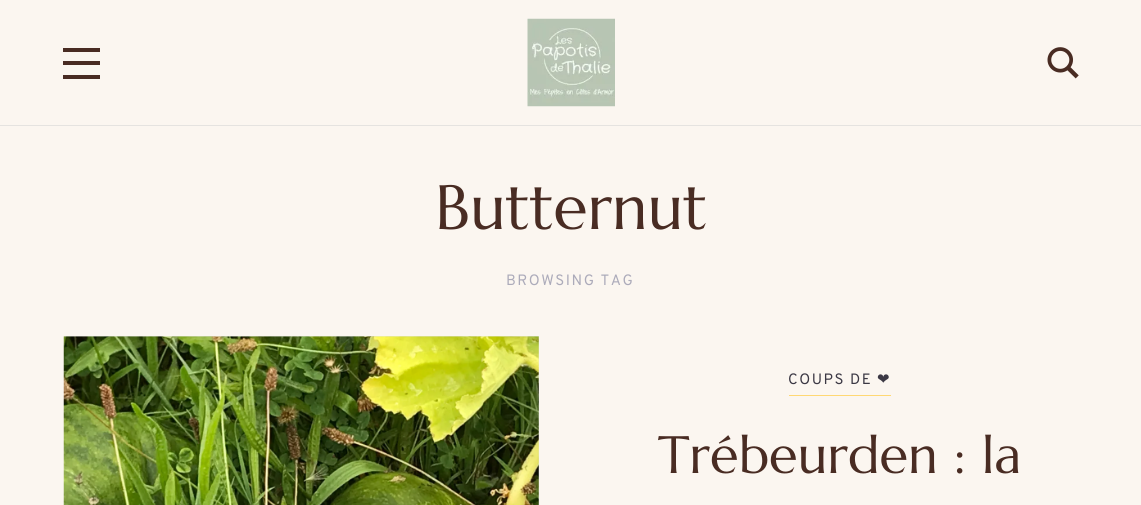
#include <cairo.h>
#include <math.h>
#include <stddef.h>

static cairo_t *c;
static void C(unsigned color){cairo_set_source_rgb(c, (color >> 16) / 255.0, (color >> 8 & 255) / 255.0, (color & 255) / 255.0);}
static void F(const char *family, double size, int italic, int bold){cairo_select_font_face(c, family, italic ? CAIRO_FONT_SLANT_ITALIC : CAIRO_FONT_SLANT_NORMAL,bold ? CAIRO_FONT_WEIGHT_BOLD : CAIRO_FONT_WEIGHT_NORMAL);cairo_set_font_size(c, size);}
static void T(double x, double y, const char *s){cairo_move_to(c, x, y);cairo_show_text(c, s);}
static void L(double x, double y, const char *s, double letter, double word){cairo_move_to(c, x, y);while (*s) {char ch[5] = {0};int n = 0;do ch[n++] = *s++; while ((*s & 0xC0) == 0x80);cairo_show_text(c, ch);cairo_rel_move_to(c, letter + word * (*ch == ' '), 0);}}
static void R(double x, double y, double w, double h){cairo_rectangle(c, x, y, w, h);cairo_fill(c);}
static void I(const char *path, double x, double y, double w, double h){cairo_surface_t *image = cairo_image_surface_create_from_png(path);cairo_save(c);cairo_set_source_surface(c, image, x, y);cairo_rectangle(c, x, y, w, h);cairo_fill(c);cairo_restore(c);cairo_surface_destroy(image);}
int main(void) {
cairo_surface_t *surface = cairo_image_surface_create(CAIRO_FORMAT_RGB24, 1141, 505);
c = cairo_create(surface);
cairo_font_options_t *options = cairo_font_options_create();
cairo_font_options_set_hint_metrics(options, CAIRO_HINT_METRICS_OFF);
cairo_font_options_set_hint_style(options, CAIRO_HINT_STYLE_NONE);
cairo_set_font_options(c, options);
cairo_set_miter_limit(c, 4);
C(0xfbf6f0);
cairo_paint(c);
C(0xe5e3e0);
R(0,125,1141,1);
C(0x492c23);
R(63,48,37,4);
R(63,75,37,4);
R(63,61,37,4);
I("1.png",527,18,88,89);
I("2.png",1047,47,32,32);
F("Marcellus",62.5,0,0);
T(435,229,"Butternut");
F("Overpass",15,0,0);
C(0xacabba);
L(506,285,"BROWSING TAG",1.5,0);
C(0xe0e4da);
R(64,336,475,169);
I("3.png",63,336,476,169);
C(0xffd874);
R(789,395,102,1);
C(0x3b3844);
L(788,384,"COUPS DE",1.5,0);
F("DejaVu Sans",15,0,0);
L(877,384,"❤",1.5,0);
F("Marcellus",52.5,0,0);
C(0x492c23);
T(658,473,"Trébeurden : la");
cairo_surface_write_to_png(surface, "o.png");
cairo_font_options_destroy(options);
cairo_destroy(c);
cairo_surface_destroy(surface);
return 0;
}
